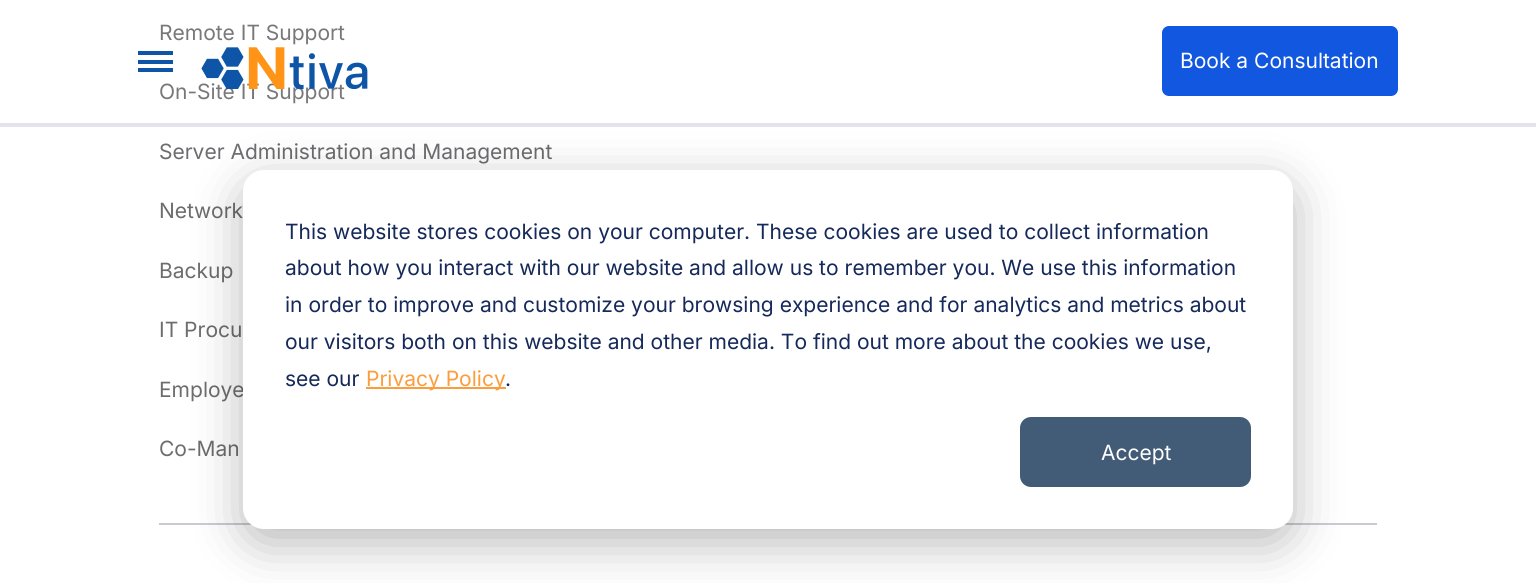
#include <cairo.h>
#include <math.h>
#include <stddef.h>

static cairo_t *c;
static void C(unsigned color){cairo_set_source_rgb(c, (color >> 16) / 255.0, (color >> 8 & 255) / 255.0, (color & 255) / 255.0);}
static void F(const char *family, double size, int italic, int bold){cairo_select_font_face(c, family, italic ? CAIRO_FONT_SLANT_ITALIC : CAIRO_FONT_SLANT_NORMAL,bold ? CAIRO_FONT_WEIGHT_BOLD : CAIRO_FONT_WEIGHT_NORMAL);cairo_set_font_size(c, size);}
static void T(double x, double y, const char *s){cairo_move_to(c, x, y);cairo_show_text(c, s);}
static void R(double x, double y, double w, double h){cairo_rectangle(c, x, y, w, h);cairo_fill(c);}
static void Q(double x, double y, double w, double h, double r){cairo_new_sub_path(c);cairo_arc(c, x + w - r, y + h - r, r, 0, M_PI / 2);cairo_arc(c, x + r, y + h - r, r, M_PI / 2, M_PI);cairo_arc(c, x + r, y + r, r, M_PI, 1.5 * M_PI);cairo_arc(c, x + w - r, y + r, r, 1.5 * M_PI, 2 * M_PI);cairo_close_path(c);}
static void S(double x, double y, double w, double h, double r, double blur, double alpha){cairo_push_group_with_content(c, CAIRO_CONTENT_ALPHA);cairo_set_operator(c, CAIRO_OPERATOR_SOURCE);for (int i = 15; i >= -15 && fmin(w, h) + blur * i / 3 > 0; i -= 2) {double e = blur * i / 6;cairo_set_source_rgba(c, 0, 0, 0, alpha * erfc((i - 1) / 8.5) / 2);Q(x - e, y - e, w + 2 * e, h + 2 * e, fmax(0, fmin(r + e + blur * .6, fmin(w, h) / 2 + e)));cairo_fill(c);}cairo_pattern_t *soft = cairo_pop_group(c);cairo_mask(c, soft);cairo_pattern_destroy(soft);}
static void I(const char *path, double x, double y, double w, double h){cairo_surface_t *image = cairo_image_surface_create_from_png(path);cairo_save(c);cairo_set_source_surface(c, image, x, y);cairo_rectangle(c, x, y, w, h);cairo_fill(c);cairo_restore(c);cairo_surface_destroy(image);}
int main(void) {
cairo_surface_t *surface = cairo_image_surface_create(CAIRO_FORMAT_RGB24, 1536, 583);
c = cairo_create(surface);
cairo_font_options_t *options = cairo_font_options_create();
cairo_font_options_set_hint_metrics(options, CAIRO_HINT_METRICS_OFF);
cairo_font_options_set_hint_style(options, CAIRO_HINT_STYLE_NONE);
cairo_set_font_options(c, options);
cairo_set_miter_limit(c, 4);
C(0xffffff);
cairo_paint(c);
C(0xcacbd1);
R(159,523,1218,2);
F("Inter",21,0,0);
C(0x78787b);
T(159,40,"Remote IT Support");
T(159,99,"On-Site IT Support");
C(0x6d6d70);
T(159,159,"Server Administration and Management");
T(159,218,"Network");
T(159,278,"Backup");
T(159,337,"IT Procu");
T(159,397,"Employe");
T(159,456,"Co-Man");
C(0xe3e4eb);
R(0,123,1536,4);
C(0x0e55a8);
R(138,51,35,4);
R(138,60,35,4);
R(138,68,35,4);
I("1.png",201,47,167,42);
C(0x1157df);
Q(1163,27,234,68,6);
cairo_fill_preserve(c);
cairo_stroke(c);
C(0xffffff);
T(1180,68,"Book a Consultation");
C(0x000000);
S(243,184,1050,359,21,24.5,.28);
C(0xffffff);
Q(243,170,1050,359,21);
cairo_fill(c);
C(0x15295a);
T(285,239,"This website stores cookies on your computer. These cookies are used to collect information");
T(285,275,"about how you interact with our website and allow us to remember you. We use this information");
T(285,312,"in order to improve and customize your browsing experience and for analytics and metrics about");
T(285,349,"our visitors both on this website and other media. To find out more about the cookies we use,");
T(285,386,"see our");
C(0xfb9d3d);
R(366,387,140,2);
T(366,386,"Privacy Policy");
C(0x15295a);
T(505,386,".");
C(0x425b76);
Q(1021,418,229,68,10);
cairo_fill_preserve(c);
cairo_stroke(c);
C(0xffffff);
T(1101,460,"Accept");
cairo_surface_write_to_png(surface, "o.png");
cairo_font_options_destroy(options);
cairo_destroy(c);
cairo_surface_destroy(surface);
return 0;
}
